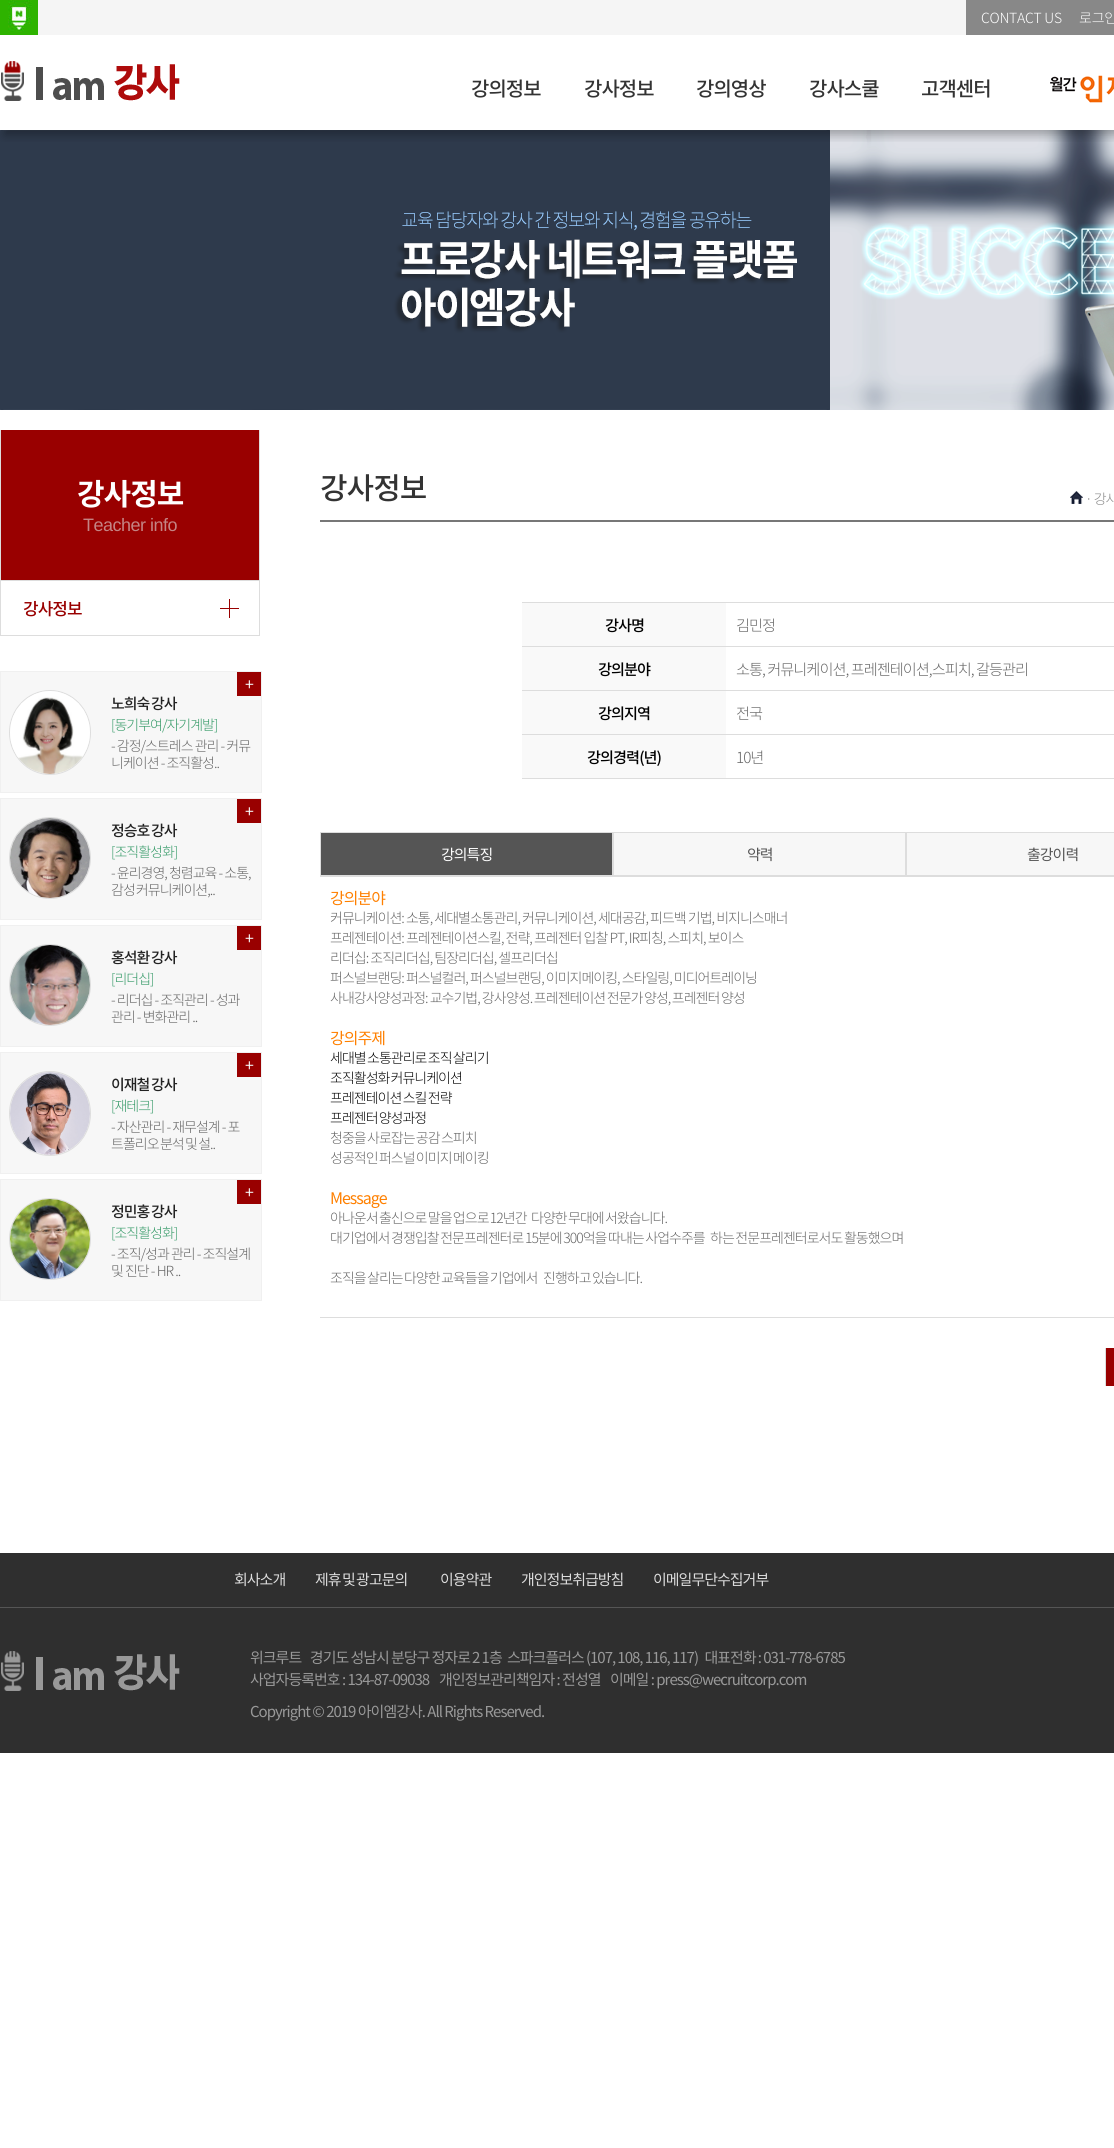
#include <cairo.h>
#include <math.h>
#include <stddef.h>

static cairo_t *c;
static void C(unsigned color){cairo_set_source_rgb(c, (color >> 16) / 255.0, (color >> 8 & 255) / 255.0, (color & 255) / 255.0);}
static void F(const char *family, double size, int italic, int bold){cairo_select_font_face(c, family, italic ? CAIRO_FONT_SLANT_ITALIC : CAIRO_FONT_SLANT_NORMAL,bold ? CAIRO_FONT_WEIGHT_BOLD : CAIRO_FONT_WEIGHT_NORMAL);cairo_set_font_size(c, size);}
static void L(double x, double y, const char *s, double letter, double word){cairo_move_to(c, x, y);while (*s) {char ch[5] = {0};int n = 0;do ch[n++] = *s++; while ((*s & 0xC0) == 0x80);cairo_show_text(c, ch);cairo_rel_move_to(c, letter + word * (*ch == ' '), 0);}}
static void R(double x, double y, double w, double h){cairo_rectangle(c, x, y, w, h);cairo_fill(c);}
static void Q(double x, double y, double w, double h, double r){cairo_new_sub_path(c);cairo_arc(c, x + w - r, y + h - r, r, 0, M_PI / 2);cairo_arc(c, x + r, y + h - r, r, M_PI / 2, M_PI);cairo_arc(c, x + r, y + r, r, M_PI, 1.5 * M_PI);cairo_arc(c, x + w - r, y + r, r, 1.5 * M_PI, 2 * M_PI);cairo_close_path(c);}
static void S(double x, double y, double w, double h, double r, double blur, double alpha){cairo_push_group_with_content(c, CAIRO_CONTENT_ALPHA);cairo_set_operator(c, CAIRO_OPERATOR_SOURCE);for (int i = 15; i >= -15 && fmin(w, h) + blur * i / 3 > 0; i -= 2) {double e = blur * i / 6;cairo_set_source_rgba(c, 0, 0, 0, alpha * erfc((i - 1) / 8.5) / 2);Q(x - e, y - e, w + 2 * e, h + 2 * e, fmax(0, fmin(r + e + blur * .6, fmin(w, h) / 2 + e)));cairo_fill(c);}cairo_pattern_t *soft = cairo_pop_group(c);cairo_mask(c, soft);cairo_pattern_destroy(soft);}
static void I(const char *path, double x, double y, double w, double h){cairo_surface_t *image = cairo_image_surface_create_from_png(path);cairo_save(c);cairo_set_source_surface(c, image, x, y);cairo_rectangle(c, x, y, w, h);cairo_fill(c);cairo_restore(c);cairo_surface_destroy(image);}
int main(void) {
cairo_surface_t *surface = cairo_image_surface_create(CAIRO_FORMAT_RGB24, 1114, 2148);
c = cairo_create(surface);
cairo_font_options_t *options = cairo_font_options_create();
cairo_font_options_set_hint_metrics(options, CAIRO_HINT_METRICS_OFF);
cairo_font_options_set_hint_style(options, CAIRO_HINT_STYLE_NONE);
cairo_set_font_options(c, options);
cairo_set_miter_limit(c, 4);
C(0xffffff);
cairo_paint(c);
I("4.png",0,130,1114,280);
cairo_save(c);
cairo_rectangle(c,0,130,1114,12);
cairo_clip(c);
C(0x000000);
S(5,5,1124,130,0,5,.3);
cairo_restore(c);
C(0xf5f5f5);
R(38,0,928,35);
I("1.png",0,0,38,35);
C(0x888888);
R(966,0,148,35);
F("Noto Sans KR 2 Light",14,0,0);
C(0xffffff);
L(981,23,"CONTACT US",-.25,0);
L(1079,23,"로그인",-.25,0);
I("2.png",1,61,179,40);
F("Noto Sans KR Medium",20,0,0);
C(0x333333);
L(471,96,"강의정보",-1,0);
L(584,96,"강사정보",-1,0);
L(696,96,"강의영상",-1,0);
L(809,96,"강사스쿨",-1,0);
L(921,96,"고객센터",-1,0);
I("3.png",1050,75,64,28);
C(0x990000);
R(1,430,258,150);
C(0xdddddd);
R(259,430,1,150);
R(0,430,1,150);
F("Noto Sans KR",30,0,1);
C(0xffffff);
L(77,505,"강사정보",-1,0);
F("Liberation Sans",18,0,0);
C(0xc48484);
L(83,531,"Teacher info",-.5,0);
C(0xdddddd);
R(0,580,260,1);
R(259,580,1,56);
R(0,580,1,56);
I("5.png",220,599,19,19);
R(1,635,258,1);
F("Noto Sans KR Medium",17,0,0);
C(0x990000);
L(23,615,"강사정보",-1,0);
C(0xf7f7f7);
cairo_rectangle(c,.5,671.5,261,121);
cairo_fill_preserve(c);
C(0xf0f0f0);
cairo_set_line_width(c,1);
cairo_stroke(c);
I("6.png",237,672,24,24);
cairo_new_path(c);
cairo_move_to(c,50,690.5);
cairo_curve_to(c,72.5,690.5,90.5,709.5,90.5,732.5);
cairo_curve_to(c,90.5,755.5,72.5,774.5,50,774.5);
cairo_curve_to(c,27.5,774.5,9.5,755.5,9.5,732.5);
cairo_curve_to(c,9.5,709.5,27.5,690.5,50,690.5);
cairo_close_path(c);
C(0xdddddd);
cairo_stroke(c);
I("7.png",10,691,80,83);
F("Noto Sans KR Medium",15,0,0);
C(0x222222);
L(111,709,"노희숙 강사",-1,-.75);
F("Noto Sans KR Light",14,0,0);
C(0x339966);
L(111,730,"[동기부여/자기계발]",-1,0);
C(0x666666);
L(111,751,"- 감정/스트레스 관리 - 커뮤",-1,0);
L(111,768,"니케이션 - 조직활성..",-1,0);
C(0xf7f7f7);
cairo_rectangle(c,.5,798.5,261,121);
cairo_fill_preserve(c);
C(0xf0f0f0);
cairo_stroke(c);
I("8.png",237,799,24,24);
cairo_arc(c,50,858,40.5,0,2 * M_PI);
C(0xdddddd);
cairo_stroke(c);
I("9.png",10,818,80,80);
F("Noto Sans KR Medium",15,0,0);
C(0x222222);
L(111,836,"정승호 강사",-1,-.75);
F("Noto Sans KR Light",14,0,0);
C(0x339966);
L(111,857,"[조직활성화]",-1,0);
C(0x666666);
L(111,878,"- 윤리경영, 청렴교육 - 소통,",-1,0);
L(111,895,"감성 커뮤니케이션,..",-1,-1);
C(0xf7f7f7);
cairo_rectangle(c,.5,925.5,261,121);
cairo_fill_preserve(c);
C(0xf0f0f0);
cairo_stroke(c);
I("6.png",237,926,24,24);
cairo_arc(c,50,985,40.5,0,2 * M_PI);
C(0xdddddd);
cairo_stroke(c);
I("10.png",10,945,80,80);
F("Noto Sans KR Medium",15,0,0);
C(0x222222);
L(111,963,"홍석환 강사",-1,-.75);
F("Noto Sans KR Light",14,0,0);
C(0x339966);
L(111,984,"[리더십]",-1,0);
C(0x666666);
L(111,1005,"- 리더십 - 조직관리 - 성과",-1,0);
L(111,1022,"관리 - 변화관리 ..",-1,0);
C(0xf7f7f7);
cairo_rectangle(c,.5,1052.5,261,121);
cairo_fill_preserve(c);
C(0xf0f0f0);
cairo_stroke(c);
I("8.png",237,1053,24,24);
cairo_new_path(c);
cairo_move_to(c,50,1071.5);
cairo_curve_to(c,72.5,1071.5,90.5,1090.5,90.5,1113.5);
cairo_curve_to(c,90.5,1136.5,72.5,1155.5,50,1155.5);
cairo_curve_to(c,27.5,1155.5,9.5,1136.5,9.5,1113.5);
cairo_curve_to(c,9.5,1090.5,27.5,1071.5,50,1071.5);
cairo_close_path(c);
C(0xdddddd);
cairo_stroke(c);
I("11.png",10,1072,80,83);
F("Noto Sans KR Medium",15,0,0);
C(0x222222);
L(111,1090,"이재철 강사",-1,-.75);
F("Noto Sans KR Light",14,0,0);
C(0x339966);
L(111,1111,"[재테크]",-1,0);
C(0x666666);
L(111,1132,"- 자산관리 - 재무설계 - 포",-1,0);
L(111,1149,"트폴리오 분석 및 설..",-1,-.75);
C(0xf7f7f7);
cairo_rectangle(c,.5,1179.5,261,121);
cairo_fill_preserve(c);
C(0xf0f0f0);
cairo_stroke(c);
I("6.png",237,1180,24,24);
cairo_arc(c,50,1239,40.5,0,2 * M_PI);
C(0xdddddd);
cairo_stroke(c);
I("12.png",10,1199,80,80);
F("Noto Sans KR Medium",15,0,0);
C(0x222222);
L(111,1217,"정민홍 강사",-1,-.75);
F("Noto Sans KR Light",14,0,0);
C(0x339966);
L(111,1238,"[조직활성화]",-1,0);
C(0x666666);
L(111,1259,"- 조직/성과 관리 - 조직설계",-1,0);
L(111,1276,"및 진단 - HR ..",-1,0);
C(0x777777);
R(320,520,794,2);
F("Noto Sans KR Medium",30,0,0);
C(0x333333);
L(320,499,"강사정보",-1,0);
I("13.png",1070,491,13,13);
F("Noto Sans KR Light",14,0,0);
C(0x888888);
L(1085,504,"· 강사",-1,0);
C(0xdddddd);
R(522,602,592,1);
C(0xf9f9f9);
R(522,603,204,43);
F("Noto Sans KR Medium",15.25,0,0);
C(0x000000);
L(605,631,"강사명",-1,0);
C(0xdddddd);
R(522,646,592,1);
F("Noto Sans KR Light",15.25,0,0);
C(0x666666);
L(736,631,"김민정",-1,0);
C(0xf9f9f9);
R(522,647,204,43);
F("Noto Sans KR Medium",15.25,0,0);
C(0x000000);
L(598,675,"강의분야",-1,0);
C(0xdddddd);
R(522,690,592,1);
F("Noto Sans KR Light",15.25,0,0);
C(0x666666);
L(736,675,"소통, 커뮤니케이션, 프레젠테이션,스피치, 갈등관리",-1,0);
C(0xf9f9f9);
R(522,691,204,43);
F("Noto Sans KR Medium",15.25,0,0);
C(0x000000);
L(598,719,"강의지역",-1,0);
C(0xdddddd);
R(522,734,592,1);
F("Noto Sans KR Light",15.25,0,0);
C(0x666666);
L(736,719,"전국",-1,0);
C(0xf9f9f9);
R(522,735,204,43);
F("Noto Sans KR Medium",15.25,0,0);
C(0x000000);
L(587,763,"강의경력(년)",-1,0);
C(0xdddddd);
R(522,778,592,1);
F("Noto Sans KR Light",15.25,0,0);
C(0x666666);
L(736,763,"10년",-1,0);
C(0xf7f7f7);
R(614,833,500,42);
C(0x555555);
cairo_rectangle(c,320.5,832.5,292,43);
cairo_fill_preserve(c);
C(0xdddddd);
cairo_stroke(c);
F("Noto Sans KR",15,0,0);
C(0xffffff);
L(441,860,"강의특징",-1,0);
cairo_rectangle(c,613.5,832.5,292,43);
C(0xdddddd);
cairo_stroke(c);
C(0x555555);
L(747,860,"약력",-1,0);
cairo_rectangle(c,906.5,832.5,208,43);
C(0xdddddd);
cairo_stroke(c);
C(0x555555);
L(1027,860,"출강이력",-1,0);
C(0xdddddd);
R(320,876,794,1);
R(320,1317,794,1);
F("Noto Sans KR",16,0,0);
C(0xff8000);
L(330,904,"강의분야",-1,0);
F("Noto Sans KR Light",14,0,0);
C(0x666666);
L(330,923,"커뮤니케이션: 소통, 세대별소통관리, 커뮤니케이션, 세대공감, 피드백 기법, 비지니스매너",-1,0);
L(330,943,"프레젠테이션: 프레젠테이션스킬, 전략, 프레젠터 입찰 PT, IR피칭, 스피치, 보이스",-1,0);
L(330,963,"리더십: 조직리더십, 팀장리더십, 셀프리더십",-1,0);
L(330,983,"퍼스널브랜딩: 퍼스널컬러, 퍼스널브랜딩, 이미지메이킹, 스타일링, 미디어트레이닝",-1,0);
L(330,1003,"사내강사양성과정: 교수기법, 강사",-1,0);
L(506,1003,"양성. 프레젠테이션 전문가 양성, 프레젠터 양성",-1,-.5);
F("Noto Sans KR",16,0,0);
C(0xff8000);
L(330,1044,"강의주제",-1,0);
F("Noto Sans KR Light",14,0,0);
C(0x000000);
L(330,1063,"세대별 소통관리로 조직 살리기",-1,-.75);
L(330,1083,"조직활성화 커뮤니케이션",-1,-1);
L(330,1103,"프레젠테이션 스킬 전략",-1,-.75);
L(330,1123,"프레젠터 양성과정",-1,-1);
C(0x666666);
L(330,1143,"청중을 사로잡는 공감 스피치",-1,-.75);
L(330,1163,"성공적인 퍼스널 이미지 메이킹",-1,-.75);
F("Noto Sans KR",16,0,0);
C(0xff8000);
L(330,1204,"Message",-1,0);
F("Noto Sans KR Light",14,0,0);
C(0x666666);
L(330,1223,"아나운서 출신으로 말을 업으로 12년간",-1,-.75);
L(531,1223,"다양한 무대에 서왔습니다.",-1,-.75);
L(330,1243,"대기업에서 경쟁입찰 전문프레젠터로 15분에 300억을 따내는 사업수주를",-1,-.5);
L(710,1243,"하는 전문프레젠터로서도 활동했으며",-1,-.5);
L(330,1283,"조직을 살리는 다양한 교육들을 기업에서",-1,-.75);
L(543,1283,"진행하고 있습니다.",-1,-.75);
C(0x990000);
R(1106,1348,8,38);
C(0xdddddd);
R(1105,1348,1,38);
C(0x2f2f2f);
R(0,1553,1114,200);
C(0x555555);
R(0,1607,1114,1);
F("Noto Sans KR",15,0,0);
C(0xdddddd);
L(234,1585,"회사소개",-1,0);
L(315,1585,"제휴 및 광고문의",-1,-1);
L(440,1585,"이용약관",-1,0);
L(521,1585,"개인정보취급방침",-1,0);
L(653,1585,"이메일무단수집거부",-1,0);
I("14.png",1,1651,179,40);
C(0x999999);
L(250,1663,"위크루트    경기도 성남시 분당구 정자로 2 1층",-1,-.2);
L(507,1663,"스파크플러스 (107, 108, 116, 117)   대표전화 : 031-778-6785",-1,-.2);
L(250,1685,"사업자등록번호 : 134-87-09038",-1,0);
L(439,1685,"개인정보관리책임자 : 전성열",-1,0);
L(610,1685,"이메일 : press@wecruitcorp.com",-1,0);
L(250,1717,"Copyright © 2019 아이엠강사. All Rights Reserved.",-1,0);
cairo_surface_write_to_png(surface, "o.png");
cairo_font_options_destroy(options);
cairo_destroy(c);
cairo_surface_destroy(surface);
return 0;
}
